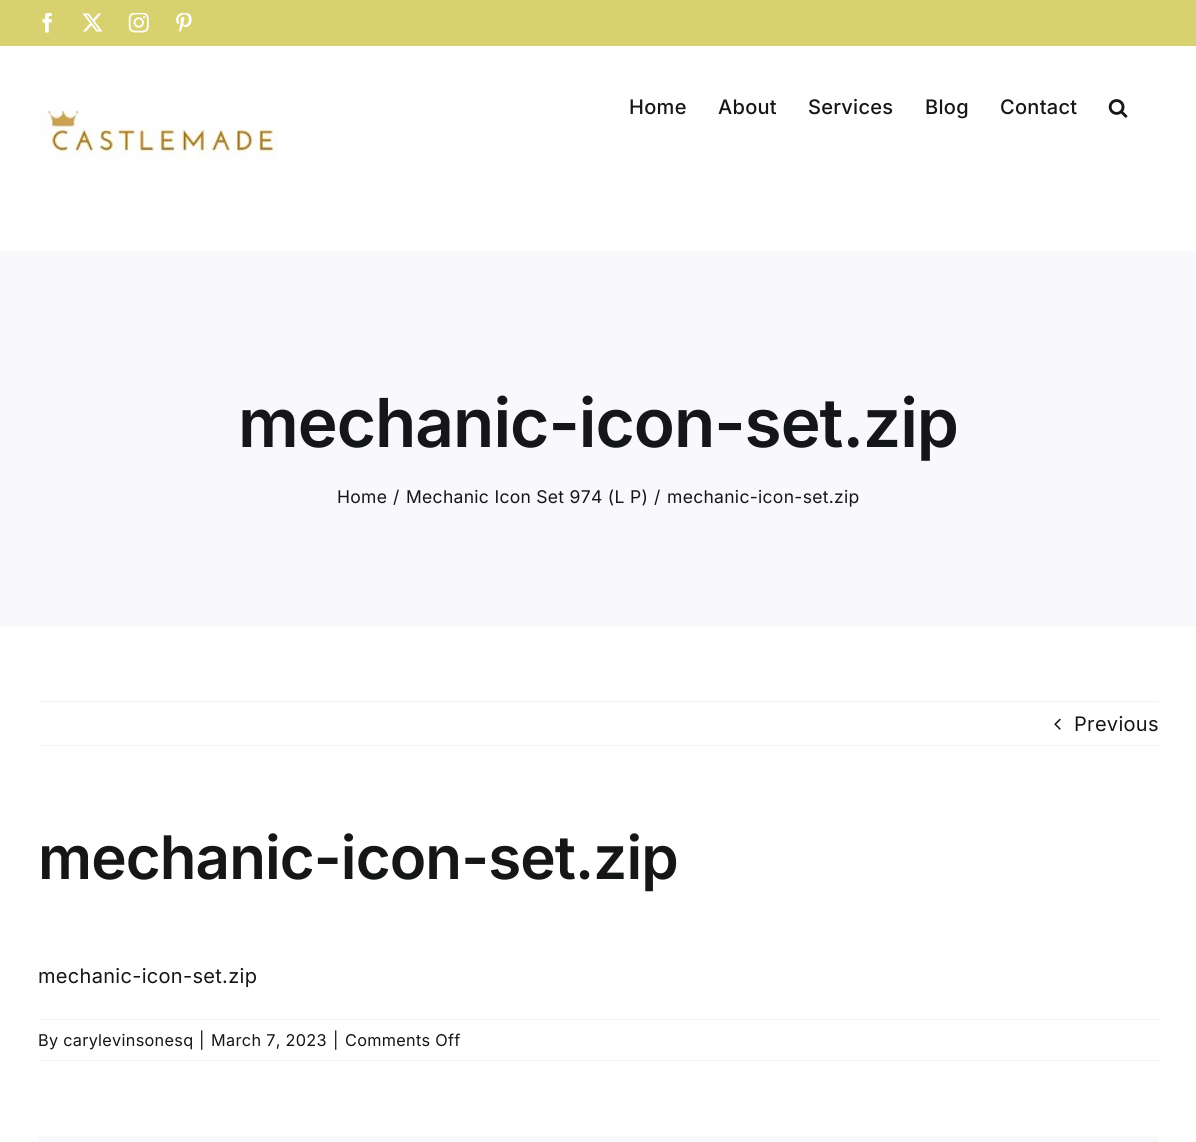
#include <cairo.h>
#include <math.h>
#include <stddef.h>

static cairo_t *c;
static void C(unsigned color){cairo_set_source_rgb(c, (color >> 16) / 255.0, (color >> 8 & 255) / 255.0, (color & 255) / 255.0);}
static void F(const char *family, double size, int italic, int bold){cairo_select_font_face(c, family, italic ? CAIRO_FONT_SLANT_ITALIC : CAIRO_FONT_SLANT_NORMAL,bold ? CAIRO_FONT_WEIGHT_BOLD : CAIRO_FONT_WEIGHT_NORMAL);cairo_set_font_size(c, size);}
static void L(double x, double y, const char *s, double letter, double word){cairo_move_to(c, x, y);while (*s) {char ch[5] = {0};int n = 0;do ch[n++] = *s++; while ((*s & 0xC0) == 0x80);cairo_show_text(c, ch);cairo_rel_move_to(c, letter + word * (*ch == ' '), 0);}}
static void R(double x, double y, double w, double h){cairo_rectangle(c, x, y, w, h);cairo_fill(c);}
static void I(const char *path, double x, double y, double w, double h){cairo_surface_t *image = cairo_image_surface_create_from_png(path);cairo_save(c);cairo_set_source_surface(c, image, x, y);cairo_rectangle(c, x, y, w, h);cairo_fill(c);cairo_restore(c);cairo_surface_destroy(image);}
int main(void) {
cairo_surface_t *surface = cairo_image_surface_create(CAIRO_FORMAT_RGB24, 1196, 1142);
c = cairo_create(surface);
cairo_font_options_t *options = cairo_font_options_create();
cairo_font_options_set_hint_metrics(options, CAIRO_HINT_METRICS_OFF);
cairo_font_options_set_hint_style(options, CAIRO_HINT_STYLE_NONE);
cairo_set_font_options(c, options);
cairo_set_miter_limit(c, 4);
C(0xffffff);
cairo_paint(c);
C(0xd8d170);
R(0,0,1196,46);
I("1.png",42,13,10,20);
I("2.png",82,13,21,19);
I("3.png",128,13,21,20);
I("4.png",176,13,16,20);
I("5.png",37,109,241,57);
F("Inter Medium",20,0,0);
C(0x141617);
L(629,114,"Home",.3,0);
L(718,114,"About",.3,0);
L(808,114,"Services",.3,0);
L(925,114,"Blog",.3,0);
L(1000,114,"Contact",.3,0);
I("6.png",1108,99,20,19);
C(0xf9f9fb);
R(0,251,1196,375);
F("Inter SemiBold",67.5,0,0);
C(0x141617);
L(238,447,"mechanic-icon-set.zip",-1,0);
F("Inter",17.5,0,0);
L(337,503,"Home",.3,0);
L(393,503,"/",.3,0);
L(406,503,"Mechanic Icon Set 974 (L P)",.3,0);
L(654,503,"/",.3,0);
L(667,503,"mechanic-icon-set.zip",.3,0);
C(0xf2f3f5);
R(38,701,1121,1);
R(38,745,1121,1);
I("7.png",1054,718,7,12);
F("Inter",20,0,0);
C(0x141617);
L(1074,731,"Previous",.3,0);
F("Inter SemiBold",60,0,0);
L(38,879,"mechanic-icon-set.zip",-.9,0);
F("Inter",20,0,0);
L(38,983,"mechanic-icon-set.zip",.3,0);
C(0xf2f3f5);
R(38,1019,1121,1);
R(38,1060,1121,1);
F("Inter",16.25,0,0);
C(0x141617);
L(38,1046,"By carylevinsonesq",.3,0);
L(199,1046,"|",.3,0);
L(211,1046,"March 7, 2023",.3,0);
L(333,1046,"|",.3,0);
L(345,1046,"Comments Off",.3,0);
C(0xf9f9fb);
R(38,1136,1121,6);
cairo_surface_write_to_png(surface, "o.png");
cairo_font_options_destroy(options);
cairo_destroy(c);
cairo_surface_destroy(surface);
return 0;
}
